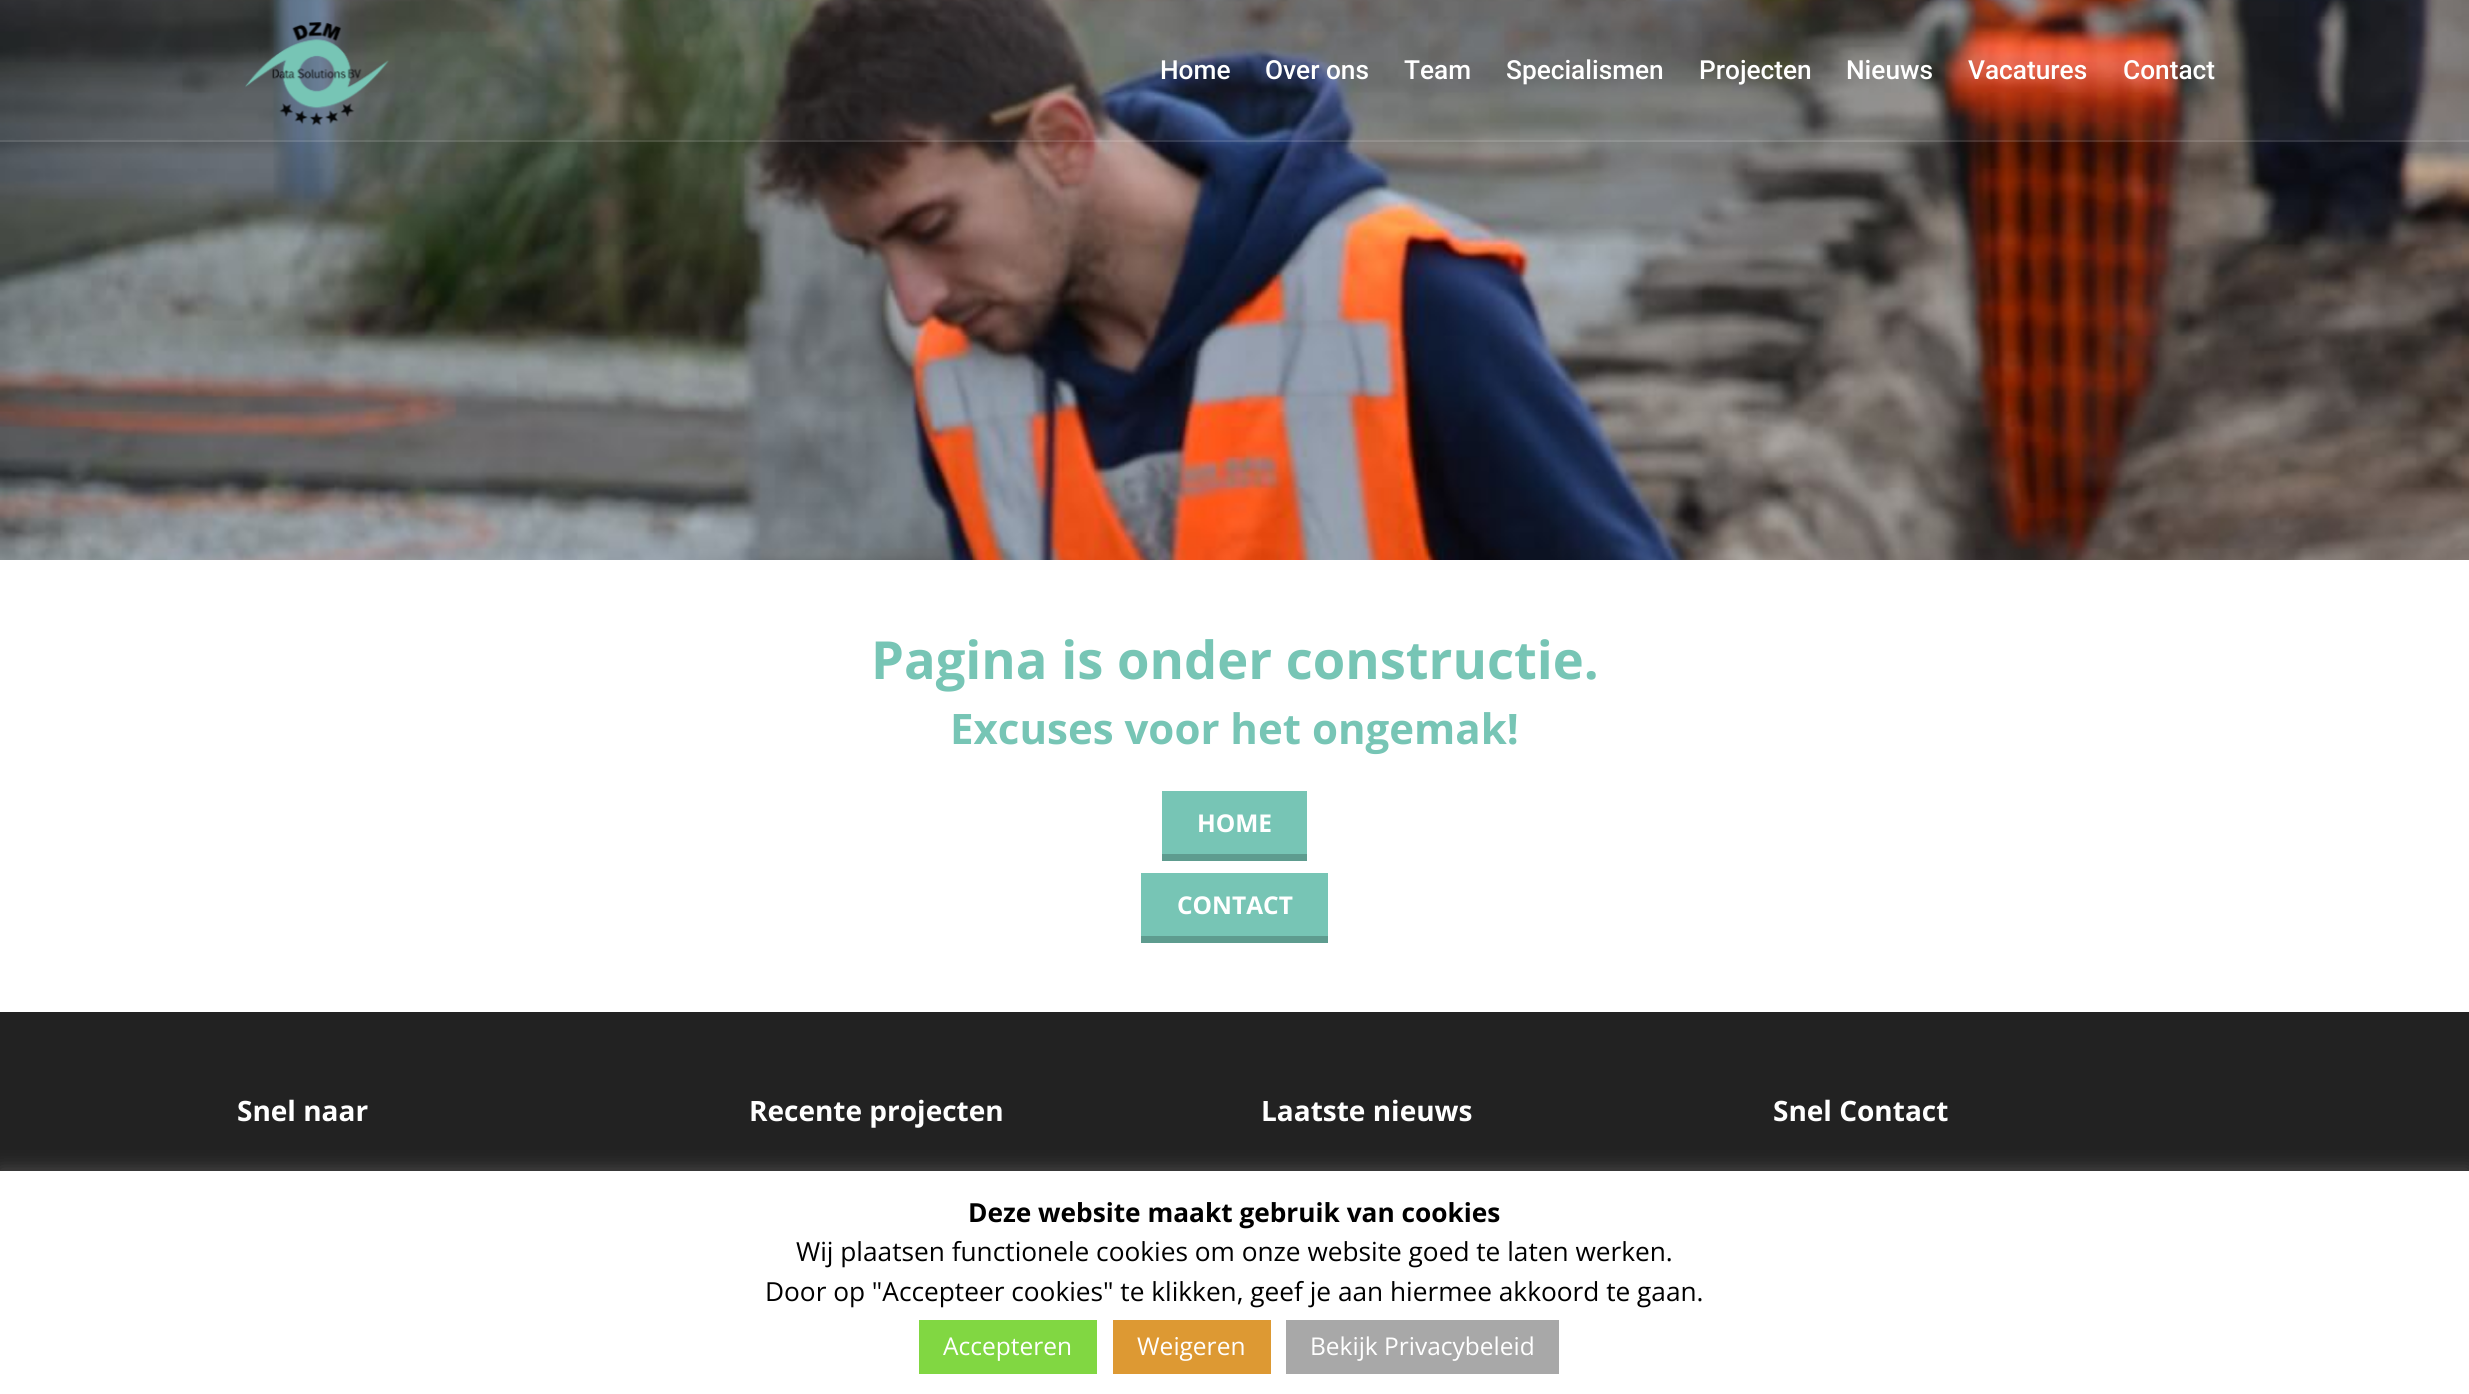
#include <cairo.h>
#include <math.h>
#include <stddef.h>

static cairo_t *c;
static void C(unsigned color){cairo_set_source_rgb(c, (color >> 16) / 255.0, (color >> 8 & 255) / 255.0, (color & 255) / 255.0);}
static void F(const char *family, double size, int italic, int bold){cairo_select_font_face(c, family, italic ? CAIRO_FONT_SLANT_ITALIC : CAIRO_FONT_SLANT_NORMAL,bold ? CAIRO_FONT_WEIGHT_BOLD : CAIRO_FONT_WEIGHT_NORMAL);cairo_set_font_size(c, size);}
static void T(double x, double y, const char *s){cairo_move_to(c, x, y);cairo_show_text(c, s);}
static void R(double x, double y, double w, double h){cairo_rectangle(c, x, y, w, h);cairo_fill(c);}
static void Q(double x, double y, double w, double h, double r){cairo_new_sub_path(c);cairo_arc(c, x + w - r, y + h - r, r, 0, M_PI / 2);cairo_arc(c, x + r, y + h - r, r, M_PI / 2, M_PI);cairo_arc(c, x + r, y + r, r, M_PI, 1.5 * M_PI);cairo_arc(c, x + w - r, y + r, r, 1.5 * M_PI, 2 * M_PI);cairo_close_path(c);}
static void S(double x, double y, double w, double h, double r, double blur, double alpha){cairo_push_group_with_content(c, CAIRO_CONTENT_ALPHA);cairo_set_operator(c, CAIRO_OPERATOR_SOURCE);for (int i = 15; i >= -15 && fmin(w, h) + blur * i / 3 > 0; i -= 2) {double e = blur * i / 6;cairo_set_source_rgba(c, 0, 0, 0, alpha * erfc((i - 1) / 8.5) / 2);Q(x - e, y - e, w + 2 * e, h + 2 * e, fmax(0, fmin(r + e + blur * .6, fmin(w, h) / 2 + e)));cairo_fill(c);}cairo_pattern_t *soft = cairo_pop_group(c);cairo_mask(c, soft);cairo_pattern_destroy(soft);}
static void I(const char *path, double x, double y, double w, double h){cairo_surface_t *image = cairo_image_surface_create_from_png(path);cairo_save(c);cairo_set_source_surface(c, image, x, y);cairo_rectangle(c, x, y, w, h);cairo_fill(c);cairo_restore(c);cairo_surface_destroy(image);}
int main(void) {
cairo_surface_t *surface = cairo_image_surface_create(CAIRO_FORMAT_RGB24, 2469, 1394);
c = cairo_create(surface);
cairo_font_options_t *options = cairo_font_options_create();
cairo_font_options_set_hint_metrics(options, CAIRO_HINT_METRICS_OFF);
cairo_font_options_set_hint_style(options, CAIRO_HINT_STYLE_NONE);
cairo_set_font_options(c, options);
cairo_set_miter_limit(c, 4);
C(0xffffff);
cairo_paint(c);
I("2.png",0,0,2469,560);
cairo_set_source_rgba(c,1,1,1,0.05);
R(0,0,2469,142);
cairo_set_source_rgba(c,1,1,1,0.1);
R(0,140,2469,2);
I("1.png",245,22,144,104);
F("Roboto Medium",26.25,0,0);
C(0xffffff);
T(1160,79,"Home");
T(1265,79,"Over ons");
T(1404,79,"Team");
T(1506,79,"Specialismen");
T(1699,79,"Projecten");
T(1846,79,"Nieuws");
T(1968,79,"Vacatures");
T(2123,79,"Contact");
F("Open Sans",52.5,0,1);
C(0x77c5b5);
T(871,679,"Pagina is onder constructie.");
F("Open Sans",42,0,1);
T(950,744,"Excuses voor het ongemak!");
C(0x5e9c8f);
R(1162,854,145,7);
C(0x77c5b5);
R(1162,791,145,63);
F("Open Sans",24.5,0,1);
C(0xffffff);
T(1197,832,"HOME");
C(0x5e9c8f);
R(1141,936,187,7);
C(0x77c5b5);
R(1141,873,187,63);
C(0xffffff);
T(1177,914,"CONTACT");
C(0x222222);
R(0,1012,2469,159);
F("Open Sans",28,0,1);
C(0xffffff);
T(237,1121,"Snel naar");
T(749,1121,"Recente projecten");
T(1261,1121,"Laatste nieuws");
T(1773,1121,"Snel Contact");
C(0xacabab);
S(0,1169,2469,224,0,9,.3);
C(0xffffff);
R(0,1171,2469,223);
F("Open Sans",26.25,0,1);
C(0x000000);
T(968,1222,"Deze website maakt gebruik van cookies");
F("Open Sans",26.25,0,0);
T(796,1261,"Wij plaatsen functionele cookies om onze website goed te laten werken.");
T(765,1301,"Door op \"Accepteer cookies\" te klikken, geef je aan hiermee akkoord te gaan.");
C(0x81d742);
R(919,1320,178,54);
F("Open Sans",24.5,0,0);
C(0xffffff);
T(943,1355,"Accepteren");
C(0xdd9933);
R(1113,1320,158,54);
C(0xffffff);
T(1137,1355,"Weigeren");
C(0xa8a8a8);
R(1286,1320,273,54);
C(0xffffff);
T(1310,1355,"Bekijk Privacybeleid");
cairo_surface_write_to_png(surface, "o.png");
cairo_font_options_destroy(options);
cairo_destroy(c);
cairo_surface_destroy(surface);
return 0;
}
